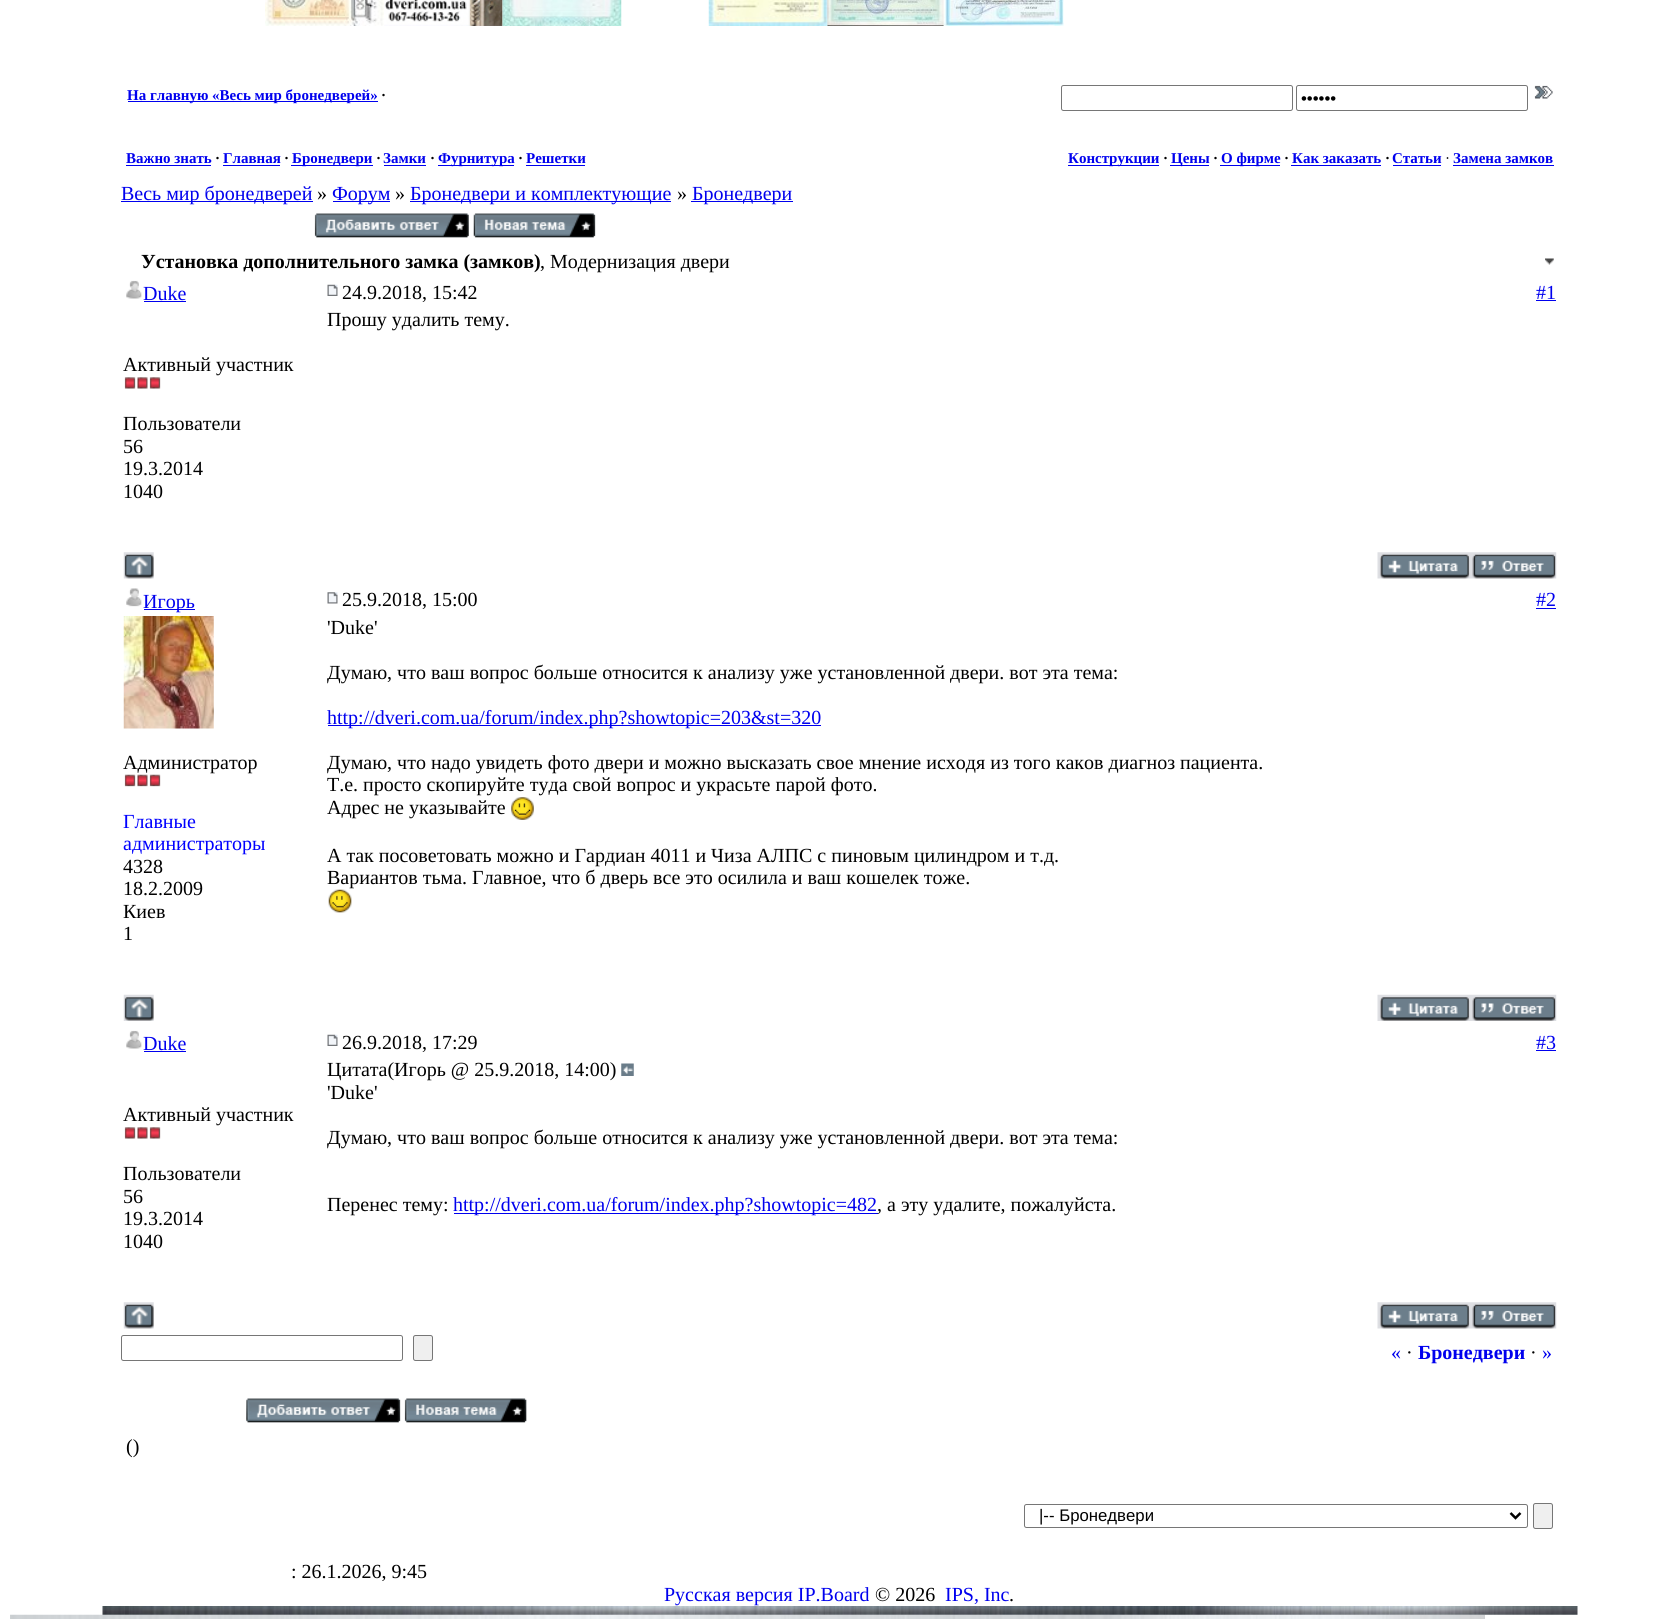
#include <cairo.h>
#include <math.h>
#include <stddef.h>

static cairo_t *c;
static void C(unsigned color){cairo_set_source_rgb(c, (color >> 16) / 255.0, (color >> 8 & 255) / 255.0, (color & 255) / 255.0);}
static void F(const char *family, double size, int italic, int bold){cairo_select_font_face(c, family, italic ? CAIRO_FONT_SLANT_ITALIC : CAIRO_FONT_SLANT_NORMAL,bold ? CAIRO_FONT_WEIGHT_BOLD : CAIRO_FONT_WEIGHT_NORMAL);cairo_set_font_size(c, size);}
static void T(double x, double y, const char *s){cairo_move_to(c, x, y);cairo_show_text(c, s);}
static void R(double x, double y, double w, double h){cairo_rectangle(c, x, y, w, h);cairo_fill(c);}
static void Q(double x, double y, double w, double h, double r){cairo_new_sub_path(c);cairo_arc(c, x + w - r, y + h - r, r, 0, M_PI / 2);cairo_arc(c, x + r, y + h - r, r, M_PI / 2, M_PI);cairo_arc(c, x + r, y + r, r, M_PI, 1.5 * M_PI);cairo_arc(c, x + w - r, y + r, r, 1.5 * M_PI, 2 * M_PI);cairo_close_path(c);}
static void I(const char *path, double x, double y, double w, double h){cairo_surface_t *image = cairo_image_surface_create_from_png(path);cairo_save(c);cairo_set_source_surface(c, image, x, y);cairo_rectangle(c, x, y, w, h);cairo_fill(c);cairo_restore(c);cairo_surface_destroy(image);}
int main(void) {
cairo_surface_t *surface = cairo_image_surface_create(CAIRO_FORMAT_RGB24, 1678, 1619);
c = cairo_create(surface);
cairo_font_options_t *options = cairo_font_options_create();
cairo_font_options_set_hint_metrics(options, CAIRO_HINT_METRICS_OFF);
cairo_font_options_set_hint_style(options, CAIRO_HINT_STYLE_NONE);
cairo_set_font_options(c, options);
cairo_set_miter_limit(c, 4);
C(0xffffff);
cairo_paint(c);
I("1.png",265,0,119,26);
I("2.png",384,0,119,26);
I("3.png",502,0,120,26);
I("4.png",708,0,120,26);
I("5.png",827,0,117,26);
I("6.png",943,0,121,26);
C(0x0000ee);
R(128,101,250,1);
F("Liberation Serif",15,0,1);
T(127,100,"На главную «Весь мир бронедверей»");
C(0x000000);
T(381,100,"·");
Q(1061.5,85.5,231,25,2);
C(0x767676);
cairo_set_line_width(c,1);
cairo_stroke(c);
Q(1296.5,85.5,231,25,2);
cairo_stroke(c);
F("Liberation Sans",16.75,0,0);
C(0x000000);
T(1301,104,"••••••");
I("7.png",1534,85,19,14);
F("Liberation Serif",15,0,1);
C(0x0000ee);
T(126,163,"Важно знать");
R(126,165,85,1);
C(0x000000);
T(215,163,"·");
C(0x0000ee);
T(223,163,"Главная");
R(223,165,57,1);
C(0x000000);
T(284,163,"·");
C(0x0000ee);
R(291,165,82,1);
T(292,163,"Бронедвери");
C(0x000000);
T(376,163,"·");
C(0x0000ee);
T(383,163,"Замки");
R(384,165,42,1);
C(0x000000);
T(430,163,"·");
C(0x0000ee);
R(438,165,76,1);
T(438,163,"Фурнитура");
C(0x000000);
T(518,163,"·");
C(0x0000ee);
T(526,163,"Решетки");
R(526,165,59,1);
R(1068,165,91,1);
T(1068,163,"Конструкции");
C(0x000000);
T(1163,163,"·");
C(0x0000ee);
R(1170,165,39,1);
T(1171,163,"Цены");
C(0x000000);
T(1213,163,"·");
C(0x0000ee);
R(1220,165,60,1);
T(1221,163,"О фирме");
C(0x000000);
T(1284,163,"·");
C(0x0000ee);
T(1292,163,"Как заказать");
R(1291,165,90,1);
C(0x000000);
T(1385,163,"·");
C(0x0000ee);
T(1392,163,"Статьи");
R(1393,165,48,1);
F("Liberation Serif",15,0,0);
C(0x000000);
T(1445,163,"·");
F("Liberation Serif",15,0,1);
C(0x0000ee);
T(1453,163,"Замена замков");
R(1453,165,101,1);
R(121,201,192,1);
F("Liberation Serif",20,0,0);
T(121,200,"Весь мир бронедверей");
C(0x000000);
T(317,200,"»");
C(0x0000ee);
R(333,201,57,1);
T(332,200,"Форум");
C(0x000000);
T(395,200,"»");
C(0x0000ee);
R(410,201,261,1);
T(410,200,"Бронедвери и комплектующие");
C(0x000000);
T(677,200,"»");
C(0x0000ee);
R(691,201,102,1);
T(692,200,"Бронедвери");
I("8.png",314,213,155,25);
I("9.png",473,213,123,25);
F("Liberation Serif",20,0,1);
C(0x000000);
T(141,268,"Установка дополнительного замка (замков)");
F("Liberation Serif",20,0,0);
T(540,268,", Модернизация двери");
I("10.png",1545,258,9,7);
I("11.png",126,280,16,19);
C(0x0000ee);
T(143,300,"Duke");
R(144,301,42,1);
I("12.png",327,284,11,12);
C(0x000000);
T(342,299,"24.9.2018, 15:42");
C(0x0000ee);
T(1536,299,"#1");
R(1536,300,20,1);
C(0x000000);
T(327,326,"Прошу удалить тему.");
T(123,371,"Активный участник");
I("13.png",124,377,12,12);
I("14.png",137,377,11,12);
I("13.png",149,377,12,12);
T(123,430,"Пользователи");
T(123,453,"56");
T(123,475,"19.3.2014");
T(123,498,"1040");
I("15.png",123,552,31,27);
I("16.png",1377,552,93,27);
I("17.png",1470,552,87,27);
I("18.png",126,588,16,19);
C(0x0000ee);
R(144,609,51,1);
T(143,608,"Игорь");
I("19.png",327,592,11,12);
C(0x000000);
T(342,606,"25.9.2018, 15:00");
C(0x0000ee);
T(1536,606,"#2");
R(1536,608,20,1);
I("20.png",123,616,91,113);
C(0x000000);
T(123,769,"Администратор");
I("21.png",124,774,12,13);
I("22.png",137,774,11,13);
I("21.png",149,774,12,13);
C(0x0000ff);
T(123,828,"Главные");
T(123,850,"администраторы");
C(0x000000);
T(123,873,"4328");
T(123,895,"18.2.2009");
T(123,918,"Киев");
T(123,940,"1");
T(327,634,"'Duke'");
T(327,679,"Думаю, что ваш вопрос больше относится к анализу уже установленной двери. вот эта тема:");
C(0x0000ee);
R(328,725,493,1);
T(327,724,"http://dveri.com.ua/forum/index.php?showtopic=203&st=320");
C(0x000000);
T(327,769,"Думаю, что надо увидеть фото двери и можно высказать свое мнение исходя из того каков диагноз пациента.");
T(327,791,"Т.е. просто скопируйте туда свой вопрос и украсьте парой фото.");
T(327,814,"Адрес не указывайте");
I("23.png",511,797,23,23);
T(327,862,"А так посоветовать можно и Гардиан 4011 и Чиза АЛПС с пиновым цилиндром и т.д.");
T(327,884,"Вариантов тьма. Главное, что б дверь все это осилила и ваш кошелек тоже.");
I("24.png",328,889,24,24);
I("25.png",123,994,31,27);
I("26.png",1377,994,93,27);
I("27.png",1470,994,87,27);
I("11.png",126,1030,16,19);
C(0x0000ee);
T(143,1050,"Duke");
R(144,1051,42,1);
I("12.png",327,1034,11,12);
C(0x000000);
T(342,1049,"26.9.2018, 17:29");
C(0x0000ee);
T(1536,1049,"#3");
R(1536,1050,20,1);
C(0x000000);
T(123,1121,"Активный участник");
I("13.png",124,1127,12,12);
I("14.png",137,1127,11,12);
I("13.png",149,1127,12,12);
T(123,1180,"Пользователи");
T(123,1203,"56");
T(123,1225,"19.3.2014");
T(123,1248,"1040");
T(327,1076,"Цитата(Игорь @ 25.9.2018, 14:00)");
I("28.png",621,1063,13,13);
T(327,1099,"'Duke'");
T(327,1144,"Думаю, что ваш вопрос больше относится к анализу уже установленной двери. вот эта тема:");
T(327,1211,"Перенес тему:");
C(0x0000ee);
R(454,1213,424,1);
T(453,1211,"http://dveri.com.ua/forum/index.php?showtopic=482");
C(0x000000);
T(877,1211,", а эту удалите, пожалуйста.");
I("15.png",123,1302,31,27);
I("16.png",1377,1302,93,27);
I("17.png",1470,1302,87,27);
Q(121.5,1335.5,281,25,2);
C(0x767676);
cairo_stroke(c);
C(0xefefef);
Q(413.5,1335.5,19,25,2);
cairo_fill_preserve(c);
C(0x767676);
cairo_stroke(c);
C(0x0000ee);
T(1391,1359,"«");
C(0x000000);
T(1406,1359,"·");
F("Liberation Serif",20,0,1);
C(0x0000ee);
T(1418,1359,"Бронедвери");
F("Liberation Serif",20,0,0);
C(0x000000);
T(1530,1359,"·");
C(0x0000ee);
T(1542,1359,"»");
I("29.png",246,1398,155,25);
I("30.png",404,1398,123,25);
C(0x000000);
T(126,1453,"()");
Q(1024.5,1504.5,503,23,2);
C(0x767676);
cairo_stroke(c);
cairo_new_path(c);
cairo_move_to(c,1510.5,1513);
cairo_line_to(c,1515.5,1518);
cairo_line_to(c,1520.5,1513);
C(0x000000);
cairo_set_line_width(c,2.5);
cairo_stroke(c);
F("Liberation Sans",16.75,0,0);
T(1039,1521,"|-- Бронедвери");
C(0xefefef);
Q(1533.5,1503.5,19,25,2);
cairo_fill_preserve(c);
C(0x767676);
cairo_set_line_width(c,1);
cairo_stroke(c);
F("Liberation Serif",20,0,0);
C(0x000000);
T(291,1578,": 26.1.2026, 9:45");
C(0x0000ee);
T(664,1601,"Русская версия IP.Board");
C(0x000000);
T(875,1601,"© 2026");
C(0x0000ee);
T(945,1601,"IPS, Inc");
C(0x000000);
T(1009,1601,".");
I("32.png",10,1614,1475,5);
I("31.png",102,1606,1476,9);
cairo_surface_write_to_png(surface, "o.png");
cairo_font_options_destroy(options);
cairo_destroy(c);
cairo_surface_destroy(surface);
return 0;
}
